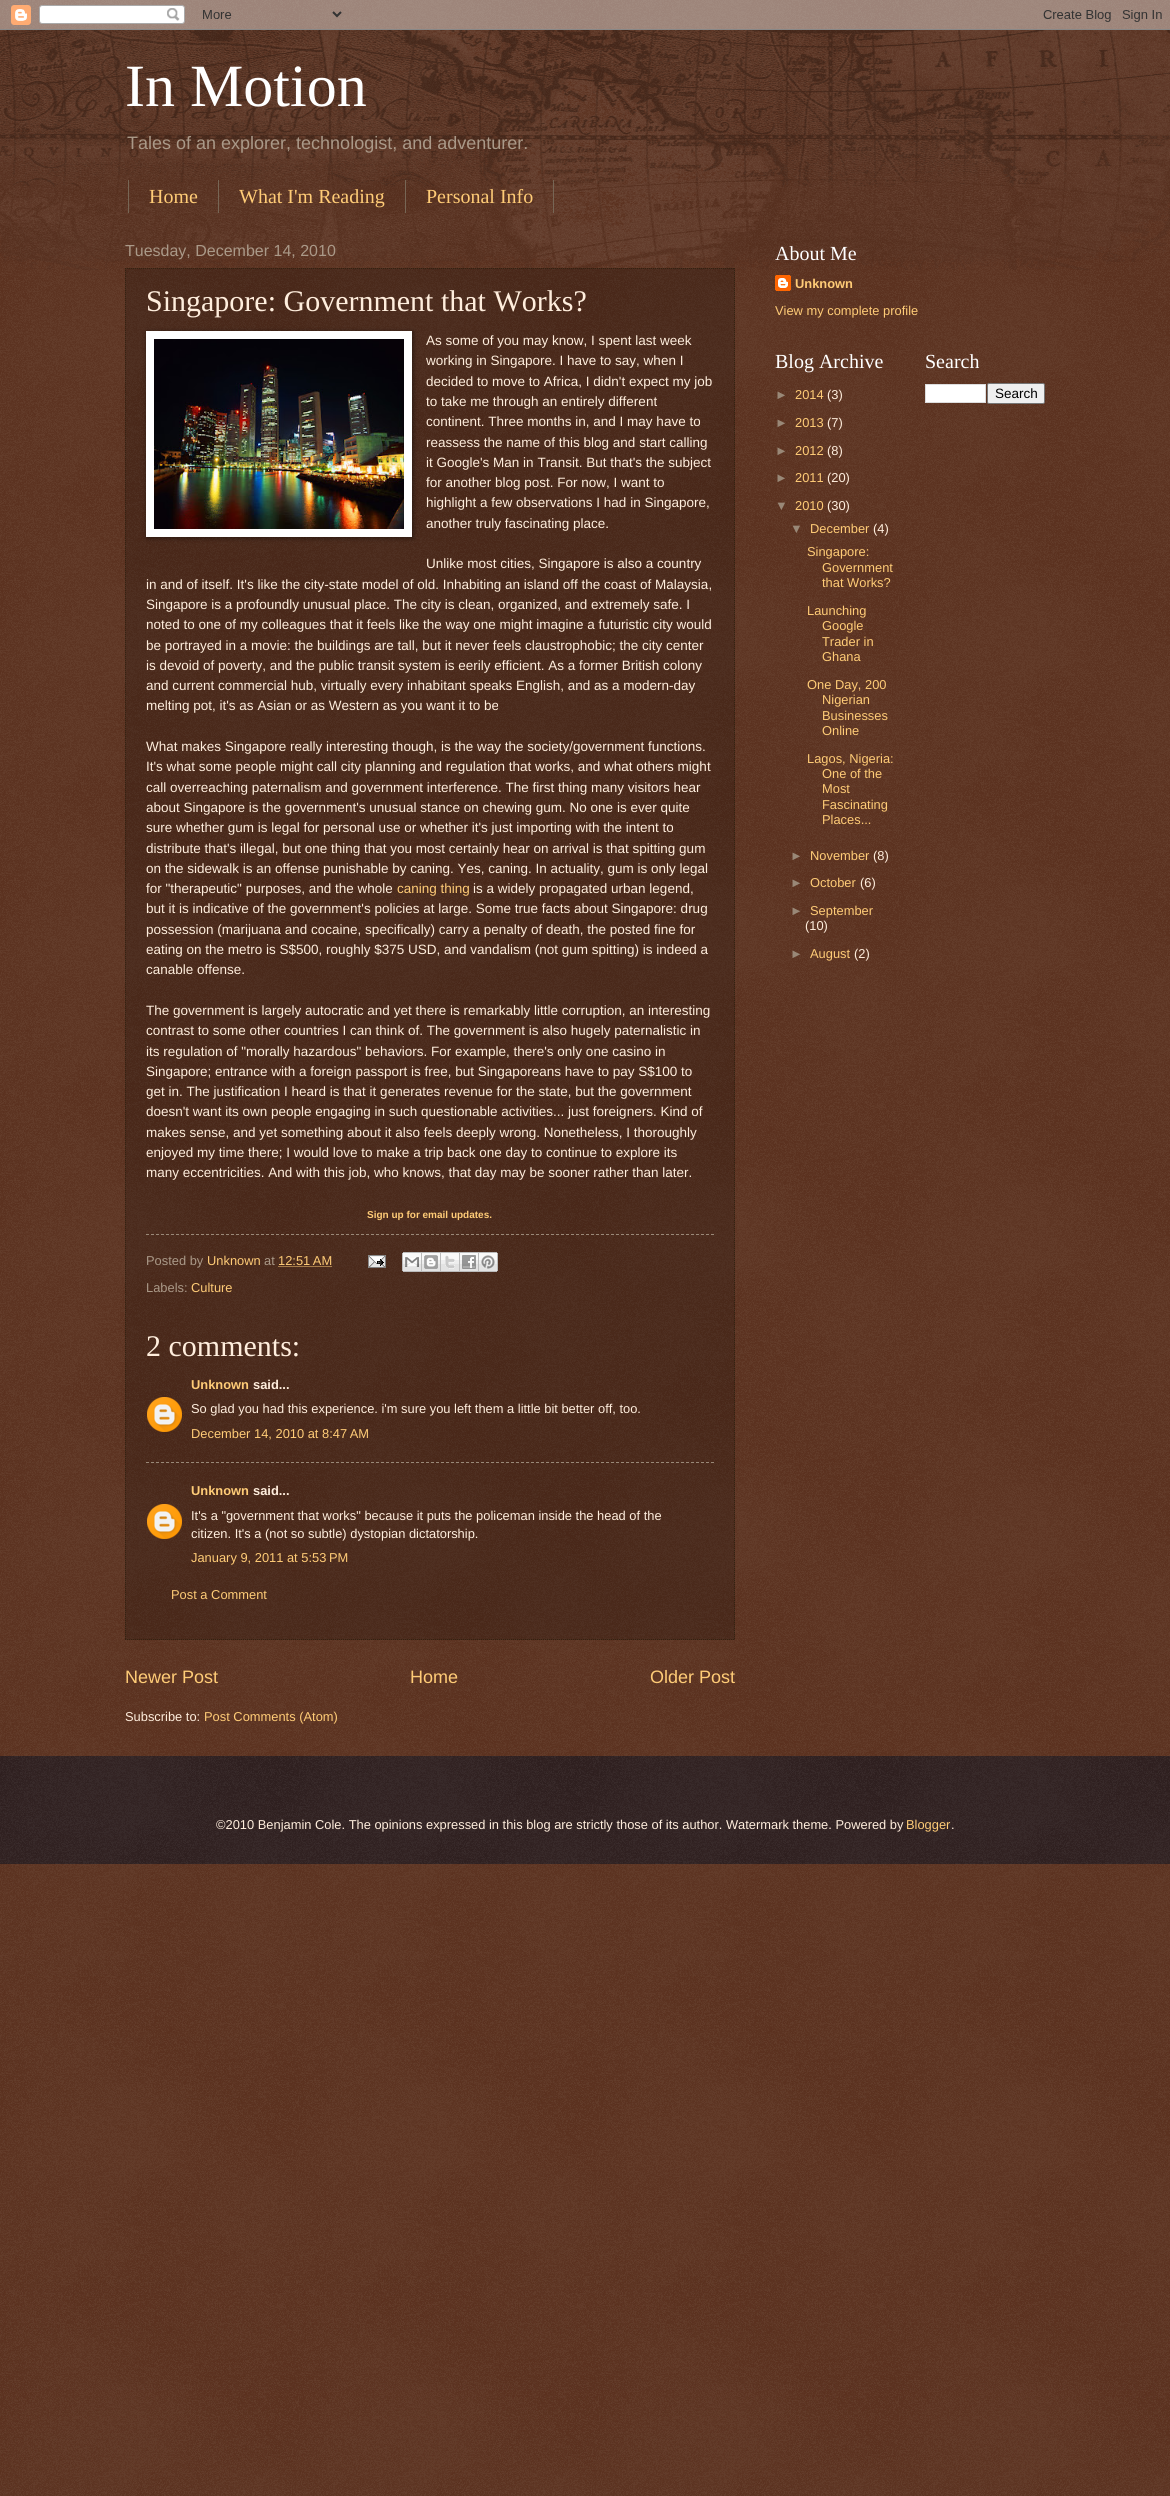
#include <cairo.h>
#include <math.h>
#include <stddef.h>

static cairo_t *c;
static void C(unsigned color){cairo_set_source_rgb(c, (color >> 16) / 255.0, (color >> 8 & 255) / 255.0, (color & 255) / 255.0);}
static void F(const char *family, double size, int italic, int bold){cairo_select_font_face(c, family, italic ? CAIRO_FONT_SLANT_ITALIC : CAIRO_FONT_SLANT_NORMAL,bold ? CAIRO_FONT_WEIGHT_BOLD : CAIRO_FONT_WEIGHT_NORMAL);cairo_set_font_size(c, size);}
static void T(double x, double y, const char *s){cairo_move_to(c, x, y);cairo_show_text(c, s);}
static void R(double x, double y, double w, double h){cairo_rectangle(c, x, y, w, h);cairo_fill(c);}
static void Q(double x, double y, double w, double h, double r){cairo_new_sub_path(c);cairo_arc(c, x + w - r, y + h - r, r, 0, M_PI / 2);cairo_arc(c, x + r, y + h - r, r, M_PI / 2, M_PI);cairo_arc(c, x + r, y + r, r, M_PI, 1.5 * M_PI);cairo_arc(c, x + w - r, y + r, r, 1.5 * M_PI, 2 * M_PI);cairo_close_path(c);}
static void S(double x, double y, double w, double h, double r, double blur, double alpha){cairo_push_group_with_content(c, CAIRO_CONTENT_ALPHA);cairo_set_operator(c, CAIRO_OPERATOR_SOURCE);for (int i = 15; i >= -15 && fmin(w, h) + blur * i / 3 > 0; i -= 2) {double e = blur * i / 6;cairo_set_source_rgba(c, 0, 0, 0, alpha * erfc((i - 1) / 8.5) / 2);Q(x - e, y - e, w + 2 * e, h + 2 * e, fmax(0, fmin(r + e + blur * .6, fmin(w, h) / 2 + e)));cairo_fill(c);}cairo_pattern_t *soft = cairo_pop_group(c);cairo_mask(c, soft);cairo_pattern_destroy(soft);}
static void I(const char *path, double x, double y, double w, double h){cairo_surface_t *image = cairo_image_surface_create_from_png(path);cairo_save(c);cairo_set_source_surface(c, image, x, y);cairo_rectangle(c, x, y, w, h);cairo_fill(c);cairo_restore(c);cairo_surface_destroy(image);}
int main(void) {
cairo_surface_t *surface = cairo_image_surface_create(CAIRO_FORMAT_RGB24, 1170, 2496);
c = cairo_create(surface);
cairo_font_options_t *options = cairo_font_options_create();
cairo_font_options_set_hint_metrics(options, CAIRO_HINT_METRICS_OFF);
cairo_font_options_set_hint_style(options, CAIRO_HINT_STYLE_NONE);
cairo_set_font_options(c, options);
cairo_set_miter_limit(c, 4);
C(0x441500);
cairo_paint(c);
I("1.png",0,0,1170,2496);
I("2.png",0,0,1170,30);
I("3.png",0,30,1170,240);
F("Liberation Serif",60,0,0);
C(0xffffff);
T(125,106,"In Motion");
F("Liberation Sans",18,0,0);
C(0xaa9988);
T(127,149,"Tales of an explorer, technologist, and adventurer.");
C(0x776655);
R(218,180,1,33);
R(128,180,1,33);
F("Liberation Serif",20,0,0);
C(0xffcc77);
T(149,203,"Home");
C(0x776655);
R(405,180,1,33);
C(0xffcc77);
T(239,203,"What I'm Reading");
C(0x776655);
R(553,180,1,33);
C(0xffcc77);
T(426,203,"Personal Info");
F("Liberation Sans",16,0,0);
C(0xaa9988);
T(125,256,"Tuesday, December 14, 2010");
cairo_set_source_rgba(c,0,0,0,0.2);
R(125,268,610,1372);
cairo_new_path(c);
cairo_move_to(c,125,268.5);
cairo_line_to(c,735,268.5);
C(0x332211);
cairo_set_line_width(c,1);
cairo_set_dash(c,(double[]){1,1},2,0);
cairo_stroke(c);
cairo_new_path(c);
cairo_move_to(c,734.5,268);
cairo_line_to(c,734.5,1640);
cairo_stroke(c);
cairo_new_path(c);
cairo_move_to(c,125,1639.5);
cairo_line_to(c,735,1639.5);
cairo_stroke(c);
cairo_new_path(c);
cairo_move_to(c,125.5,268);
cairo_line_to(c,125.5,1640);
cairo_stroke(c);
F("Liberation Serif",30,0,0);
C(0xffeedd);
T(146,311,"Singapore: Government that Works?");
C(0x000000);
S(147,332,266,206,0,2.5,.5);
C(0xffffff);
R(146,331,266,206);
I("4.png",154,339,250,190);
F("Liberation Sans",13.5,0,0);
C(0xffeedd);
T(426,345,"As some of you may know, I spent last week");
T(426,365,"working in Singapore. I have to say, when I");
T(426,386,"decided to move to Africa, I didn't expect my job");
T(426,406,"to take me through an entirely different");
T(426,426,"continent. Three months in, and I may have to");
T(426,447,"reassess the name of this blog and start calling");
T(426,467,"it Google's Man in Transit. But that's the subject");
T(426,487,"for another blog post. For now, I want to");
T(426,507,"highlight a few observations I had in Singapore,");
T(426,528,"another truly fascinating place.");
T(426,568,"Unlike most cities, Singapore is also a country");
T(146,589,"in and of itself. It's like the city-state model of old. Inhabiting an island off the coast of Malaysia,");
T(146,609,"Singapore is a profoundly unusual place. The city is clean, organized, and extremely safe. I");
T(146,629,"noted to one of my colleagues that it feels like the way one might imagine a futuristic city would");
T(146,650,"be portrayed in a movie: the buildings are tall, but it never feels claustrophobic; the city center");
T(146,670,"is devoid of poverty, and the public transit system is eerily efficient. As a former British colony");
T(146,690,"and current commercial hub, virtually every inhabitant speaks English, and as a modern-day");
T(146,710,"melting pot, it's as Asian or as Western as you want it to be");
T(146,751,"What makes Singapore really interesting though, is the way the society/government functions.");
T(146,771,"It's what some people might call city planning and regulation that works, and what others might");
T(146,792,"call overreaching paternalism and government interference. The first thing many visitors hear");
T(146,812,"about Singapore is the government's unusual stance on chewing gum. No one is ever quite");
T(146,832,"sure whether gum is legal for personal use or whether it's just importing with the intent to");
T(146,853,"distribute that's illegal, but one thing that you most certainly hear on arrival is that spitting gum");
T(146,873,"on the sidewalk is an offense punishable by caning. Yes, caning. In actuality, gum is only legal");
T(146,893,"for \"therapeutic\" purposes, and the whole");
C(0xffcc77);
T(397,893,"caning thing");
C(0xffeedd);
T(473,893,"is a widely propagated urban legend,");
T(146,913,"but it is indicative of the government's policies at large. Some true facts about Singapore: drug");
T(146,934,"possession (marijuana and cocaine, specifically) carry a penalty of death, the posted fine for");
T(146,954,"eating on the metro is S$500, roughly $375 USD, and vandalism (not gum spitting) is indeed a");
T(146,974,"canable offense.");
T(146,1015,"The government is largely autocratic and yet there is remarkably little corruption, an interesting");
T(146,1035,"contrast to some other countries I can think of. The government is also hugely paternalistic in");
T(146,1056,"its regulation of \"morally hazardous\" behaviors. For example, there's only one casino in");
T(146,1076,"Singapore; entrance with a foreign passport is free, but Singaporeans have to pay S$100 to");
T(146,1096,"get in. The justification I heard is that it generates revenue for the state, but the government");
T(146,1116,"doesn't want its own people engaging in such questionable activities... just foreigners. Kind of");
T(146,1137,"makes sense, and yet something about it also feels deeply wrong. Nonetheless, I thoroughly");
T(146,1157,"enjoyed my time there; I would love to make a trip back one day to continue to explore its");
T(146,1177,"many eccentricities. And with this job, who knows, that day may be sooner rather than later.");
F("Liberation Sans",10,0,1);
C(0xffcc77);
T(367,1218,"Sign up for email updates.");
cairo_new_path(c);
cairo_move_to(c,146,1234.5);
cairo_line_to(c,714,1234.5);
C(0x998877);
cairo_set_dash(c,(double[]){3,2},2,0);
cairo_stroke(c);
F("Liberation Sans",12.88,0,0);
C(0xaa9988);
T(146,1265,"Posted by");
C(0xffcc77);
T(207,1265,"Unknown");
C(0xaa9988);
T(264,1265,"at");
C(0xffcc77);
T(278,1265,"12:51 AM");
cairo_new_path(c);
cairo_move_to(c,278.5,1266.5);
cairo_line_to(c,332.5,1266.5);
cairo_set_dash(c,(double[]){1,1},2,0);
cairo_stroke(c);
I("5.png",368,1255,18,13);
I("6.png",402,1252,20,20);
I("7.png",422,1252,19,20);
I("8.png",441,1252,19,20);
I("9.png",460,1252,19,20);
I("10.png",479,1252,19,20);
C(0xaa9988);
T(146,1292,"Labels:");
C(0xffcc77);
T(191,1292,"Culture");
F("Liberation Serif",30,0,0);
C(0xffeedd);
T(146,1356,"2 comments:");
F("Liberation Sans",12.88,0,1);
C(0xffcc77);
T(191,1389,"Unknown");
C(0xffeedd);
T(253,1389,"said...");
I("11.png",147,1397,35,35);
F("Liberation Sans",12.88,0,0);
T(191,1413,"So glad you had this experience. i'm sure you left them a little bit better off, too.");
C(0xffcc77);
T(191,1438,"December 14, 2010 at 8:47 AM");
cairo_new_path(c);
cairo_move_to(c,146,1462.5);
cairo_line_to(c,714,1462.5);
C(0x998877);
cairo_set_dash(c,(double[]){3,2},2,0);
cairo_stroke(c);
F("Liberation Sans",12.88,0,1);
C(0xffcc77);
T(191,1495,"Unknown");
C(0xffeedd);
T(253,1495,"said...");
I("12.png",147,1504,35,35);
F("Liberation Sans",12.88,0,0);
T(191,1520,"It's a \"government that works\" because it puts the policeman inside the head of the");
T(191,1538,"citizen. It's a (not so subtle) dystopian dictatorship.");
C(0xffcc77);
T(191,1562,"January 9, 2011 at 5:53 PM");
T(171,1599,"Post a Comment");
F("Liberation Sans",18,0,0);
T(125,1683,"Newer Post");
T(410,1683,"Home");
T(650,1683,"Older Post");
F("Liberation Sans",12.88,0,0);
C(0xffeedd);
T(125,1721,"Subscribe to:");
C(0xffcc77);
T(204,1721,"Post Comments (Atom)");
F("Liberation Serif",20,0,0);
C(0xffffff);
T(775,260,"About Me");
I("13.png",775,275,16,16);
F("Liberation Sans",12.88,0,1);
C(0xffcc77);
T(795,288,"Unknown");
F("Liberation Sans",12.88,0,0);
T(775,315,"View my complete profile");
F("Liberation Serif",20,0,0);
C(0xffffff);
T(775,368,"Blog Archive");
F("Liberation Sans",12.88,0,0);
C(0x998877);
T(775,399,"►");
C(0xffcc77);
T(795,399,"2014");
C(0xffeedd);
T(827,399,"(3)");
C(0x998877);
T(775,427,"►");
C(0xffcc77);
T(795,427,"2013");
C(0xffeedd);
T(827,427,"(7)");
C(0x998877);
T(775,455,"►");
C(0xffcc77);
T(795,455,"2012");
C(0xffeedd);
T(827,455,"(8)");
C(0x998877);
T(775,482,"►");
C(0xffcc77);
T(795,482,"2011");
C(0xffeedd);
T(827,482,"(20)");
C(0x998877);
T(775,510,"▼");
C(0xffcc77);
T(795,510,"2010");
C(0xffeedd);
T(827,510,"(30)");
C(0x998877);
T(790,533,"▼");
C(0xffcc77);
T(810,533,"December");
C(0xffeedd);
T(873,533,"(4)");
C(0xffcc77);
T(807,556,"Singapore:");
T(822,572,"Government");
T(822,587,"that Works?");
T(807,615,"Launching");
T(822,630,"Google");
T(822,646,"Trader in");
T(822,661,"Ghana");
T(807,689,"One Day, 200");
T(822,704,"Nigerian");
T(822,720,"Businesses");
T(822,735,"Online");
T(807,763,"Lagos, Nigeria:");
T(822,778,"One of the");
T(822,793,"Most");
T(822,809,"Fascinating");
T(822,824,"Places...");
C(0x998877);
T(790,860,"►");
C(0xffcc77);
T(810,860,"November");
C(0xffeedd);
T(873,860,"(8)");
C(0x998877);
T(790,887,"►");
C(0xffcc77);
T(810,887,"October");
C(0xffeedd);
T(860,887,"(6)");
C(0x998877);
T(790,915,"►");
C(0xffcc77);
T(810,915,"September");
C(0xffeedd);
T(805,930,"(10)");
C(0x998877);
T(790,958,"►");
C(0xffcc77);
T(810,958,"August");
C(0xffeedd);
T(854,958,"(2)");
F("Liberation Serif",20,0,0);
C(0xffffff);
T(925,368,"Search");
cairo_rectangle(c,925.5,384.5,60,18);
cairo_fill_preserve(c);
C(0xdddddd);
cairo_set_dash(c,NULL,0,0);
cairo_stroke(c);
C(0xefefef);
Q(987.5,383.5,57,20,1.5);
cairo_fill_preserve(c);
C(0x767676);
cairo_stroke(c);
F("Liberation Sans",13.5,0,0);
C(0x000000);
T(995,398,"Search");
C(0x110000);
R(0,1756,1170,108);
I("14.png",0,1756,1170,108);
F("Liberation Sans",12.88,0,0);
C(0xffeedd);
T(216,1829,"©2010 Benjamin Cole. The opinions expressed in this blog are strictly those of its author. Watermark theme. Powered by");
C(0xffcc77);
T(906,1829,"Blogger");
C(0xffeedd);
T(951,1829,".");
cairo_surface_write_to_png(surface, "o.png");
cairo_font_options_destroy(options);
cairo_destroy(c);
cairo_surface_destroy(surface);
return 0;
}
